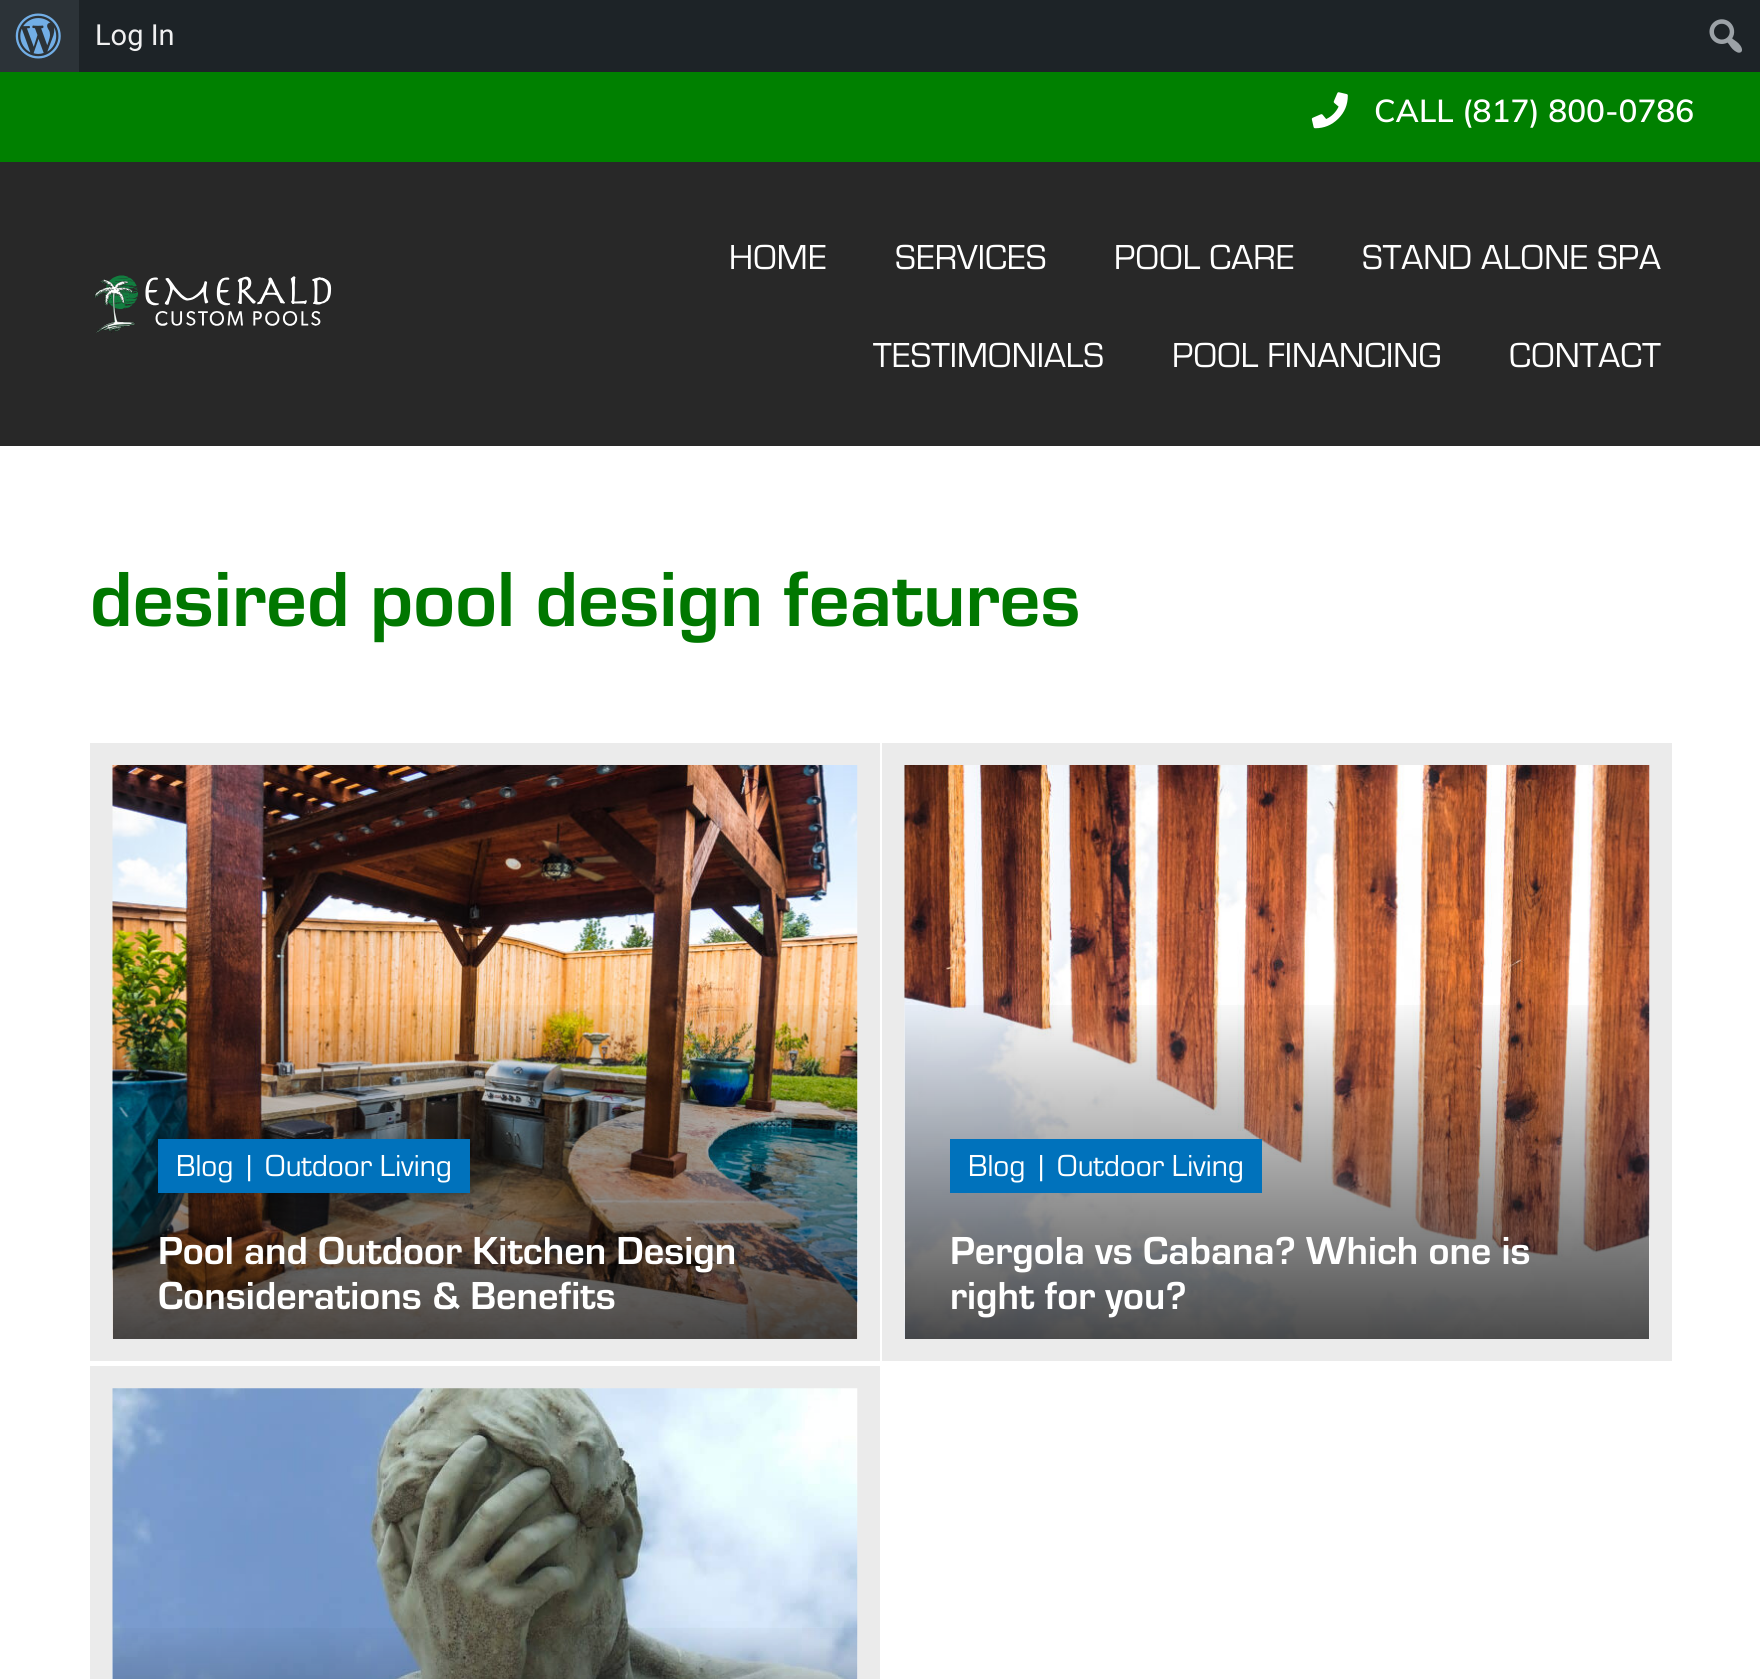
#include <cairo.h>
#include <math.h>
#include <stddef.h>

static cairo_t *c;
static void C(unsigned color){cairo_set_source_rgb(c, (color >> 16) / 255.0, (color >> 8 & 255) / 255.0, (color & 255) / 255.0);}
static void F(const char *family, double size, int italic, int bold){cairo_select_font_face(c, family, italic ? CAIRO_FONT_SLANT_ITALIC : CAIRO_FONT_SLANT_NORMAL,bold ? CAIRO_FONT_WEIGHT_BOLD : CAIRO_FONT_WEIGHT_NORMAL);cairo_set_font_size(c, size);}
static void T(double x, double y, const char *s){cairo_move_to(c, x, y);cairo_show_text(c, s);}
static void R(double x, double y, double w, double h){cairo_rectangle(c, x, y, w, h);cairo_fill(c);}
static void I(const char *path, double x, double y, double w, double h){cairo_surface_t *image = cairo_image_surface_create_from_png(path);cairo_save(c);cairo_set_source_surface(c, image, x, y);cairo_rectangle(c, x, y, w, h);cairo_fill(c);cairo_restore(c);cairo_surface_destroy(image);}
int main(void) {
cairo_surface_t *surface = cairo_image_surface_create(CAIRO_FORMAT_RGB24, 1760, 1679);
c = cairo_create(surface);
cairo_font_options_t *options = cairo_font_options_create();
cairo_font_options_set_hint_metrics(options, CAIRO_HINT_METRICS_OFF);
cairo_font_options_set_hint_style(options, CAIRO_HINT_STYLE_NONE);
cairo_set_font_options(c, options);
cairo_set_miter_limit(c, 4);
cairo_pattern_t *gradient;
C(0xffffff);
cairo_paint(c);
C(0x1d2327);
R(79,0,1681,72);
C(0x2c3338);
R(0,0,79,72);
I("1.png",15,13,46,46);
F("Roboto",29,0,0);
C(0xf0f0f1);
T(95,45,"Log In");
I("2.png",1709,19,33,34);
C(0x008000);
R(0,72,1760,90);
I("3.png",1311,92,37,37);
F("Muli SemiBold",31.5,0,0);
C(0xffffff);
T(1374,122,"CALL (817) 800-0786");
C(0x282828);
R(0,162,1760,284);
I("4.png",94,275,238,58);
F("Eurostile",36,0,0);
C(0xffffff);
T(729,269,"HOME");
T(895,269,"SERVICES");
T(1114,269,"POOL CARE");
T(1362,269,"STAND ALONE SPA");
T(873,367,"TESTIMONIALS");
T(1172,367,"POOL FINANCING");
T(1509,367,"CONTACT");
F("Eurostile",81,0,1);
C(0x007700);
T(90,626,"desired pool design features");
C(0xebebeb);
R(90,743,790,618);
I("5.png",112,765,746,574);
gradient = cairo_pattern_create_linear(485,765,485,1339);
cairo_pattern_add_color_stop_rgba(gradient,.4,0,0,0,0);
cairo_pattern_add_color_stop_rgba(gradient,1,0,0,0,.7);
cairo_set_source(c,gradient);
cairo_pattern_destroy(gradient);
R(113,1005,744,334);
C(0x0072bc);
R(158,1139,312,54);
F("Eurostile",31.5,0,0);
C(0xffffff);
T(176,1176,"Blog | Outdoor Living");
F("Eurostile",40.5,0,1);
T(158,1264,"Pool and Outdoor Kitchen Design");
T(158,1309,"Considerations & Benefits");
C(0xebebeb);
R(882,743,790,618);
I("6.png",904,765,746,574);
gradient = cairo_pattern_create_linear(1277,765,1277,1339);
cairo_pattern_add_color_stop_rgba(gradient,.4,0,0,0,0);
cairo_pattern_add_color_stop_rgba(gradient,1,0,0,0,.7);
cairo_set_source(c,gradient);
cairo_pattern_destroy(gradient);
R(905,1005,744,334);
C(0x0072bc);
R(950,1139,312,54);
F("Eurostile",31.5,0,0);
C(0xffffff);
T(968,1176,"Blog | Outdoor Living");
F("Eurostile",40.5,0,1);
T(950,1264,"Pergola vs Cabana? Which one is");
T(950,1309,"right for you?");
C(0xebebeb);
R(90,1366,790,313);
I("7.png",112,1388,746,291);
gradient = cairo_pattern_create_linear(485,1388,485,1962);
cairo_pattern_add_color_stop_rgba(gradient,.4,0,0,0,0);
cairo_pattern_add_color_stop_rgba(gradient,1,0,0,0,.7);
cairo_set_source(c,gradient);
cairo_pattern_destroy(gradient);
R(113,1628,744,51);
cairo_surface_write_to_png(surface, "o.png");
cairo_font_options_destroy(options);
cairo_destroy(c);
cairo_surface_destroy(surface);
return 0;
}
